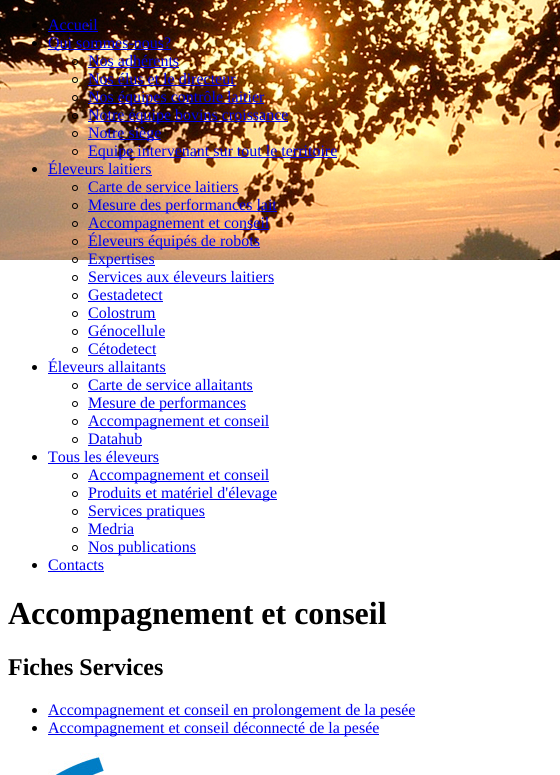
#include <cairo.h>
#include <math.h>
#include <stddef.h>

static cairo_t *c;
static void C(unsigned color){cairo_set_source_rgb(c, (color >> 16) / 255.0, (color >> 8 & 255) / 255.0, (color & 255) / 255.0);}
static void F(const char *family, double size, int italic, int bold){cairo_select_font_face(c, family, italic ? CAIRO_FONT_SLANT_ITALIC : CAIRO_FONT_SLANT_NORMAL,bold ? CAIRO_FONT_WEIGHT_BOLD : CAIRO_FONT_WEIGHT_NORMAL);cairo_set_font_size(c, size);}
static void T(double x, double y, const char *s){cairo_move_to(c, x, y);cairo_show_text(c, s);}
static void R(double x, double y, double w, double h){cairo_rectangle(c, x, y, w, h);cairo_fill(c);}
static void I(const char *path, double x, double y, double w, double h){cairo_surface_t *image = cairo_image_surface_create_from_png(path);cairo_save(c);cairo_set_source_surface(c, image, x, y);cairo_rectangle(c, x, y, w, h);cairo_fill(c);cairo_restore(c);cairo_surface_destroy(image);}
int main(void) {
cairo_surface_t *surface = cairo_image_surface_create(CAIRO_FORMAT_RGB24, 560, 775);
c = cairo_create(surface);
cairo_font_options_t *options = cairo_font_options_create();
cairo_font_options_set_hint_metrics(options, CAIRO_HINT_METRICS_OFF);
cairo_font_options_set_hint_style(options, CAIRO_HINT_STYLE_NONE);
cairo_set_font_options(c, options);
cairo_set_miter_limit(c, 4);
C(0xffffff);
cairo_paint(c);
I("1.png",0,0,560,260);
C(0x000000);
cairo_arc(c,34.5,25.5,2.5,0,2 * M_PI);
cairo_fill(c);
F("Liberation Serif",16,0,0);
C(0x0000ee);
T(48,30,"Accueil");
R(48,31,50,1);
C(0x000000);
cairo_new_path(c);
cairo_arc(c,34.5,43.5,2.5,0,2 * M_PI);
cairo_fill(c);
C(0x0000ee);
R(48,49,123,1);
T(48,48,"Qui sommes-nous?");
cairo_new_path(c);
cairo_arc(c,75,62,2.5,0,2 * M_PI);
C(0x000000);
cairo_set_line_width(c,1);
cairo_stroke(c);
C(0x0000ee);
T(88,66,"Nos adhérents");
R(88,67,91,1);
cairo_new_path(c);
cairo_arc(c,75,80,2.5,0,2 * M_PI);
C(0x000000);
cairo_stroke(c);
C(0x0000ee);
T(88,84,"Nos élus et le directeur");
R(88,85,148,1);
cairo_new_path(c);
cairo_arc(c,75,98,2.5,0,2 * M_PI);
C(0x000000);
cairo_stroke(c);
C(0x0000ee);
R(88,103,176,1);
T(88,102,"Nos équipes contrôle laitier");
cairo_new_path(c);
cairo_arc(c,75,116,2.5,0,2 * M_PI);
C(0x000000);
cairo_stroke(c);
C(0x0000ee);
R(88,121,200,1);
T(88,120,"Notre équipe bovins croissance");
cairo_new_path(c);
cairo_arc(c,75,134,2.5,0,2 * M_PI);
C(0x000000);
cairo_stroke(c);
C(0x0000ee);
R(88,139,73,1);
T(88,138,"Notre siège");
cairo_new_path(c);
cairo_arc(c,75,152,2.5,0,2 * M_PI);
C(0x000000);
cairo_stroke(c);
C(0x0000ee);
R(88,157,249,1);
T(88,156,"Equipe intervenant sur tout le territoire");
C(0x000000);
cairo_new_path(c);
cairo_arc(c,34.5,169.5,2.5,0,2 * M_PI);
cairo_fill(c);
C(0x0000ee);
T(48,174,"Éleveurs laitiers");
R(48,175,104,1);
cairo_new_path(c);
cairo_arc(c,75,188,2.5,0,2 * M_PI);
C(0x000000);
cairo_stroke(c);
C(0x0000ee);
T(88,192,"Carte de service laitiers");
R(88,193,151,1);
cairo_new_path(c);
cairo_arc(c,75,206,2.5,0,2 * M_PI);
C(0x000000);
cairo_stroke(c);
C(0x0000ee);
R(88,211,189,1);
T(88,210,"Mesure des performances lait");
cairo_new_path(c);
cairo_arc(c,75,224,2.5,0,2 * M_PI);
C(0x000000);
cairo_stroke(c);
C(0x0000ee);
R(88,229,181,1);
T(88,228,"Accompagnement et conseil");
cairo_new_path(c);
cairo_arc(c,75,242,2.5,0,2 * M_PI);
C(0x000000);
cairo_stroke(c);
C(0x0000ee);
R(88,247,172,1);
T(88,246,"Éleveurs équipés de robots");
cairo_new_path(c);
cairo_arc(c,75,260,2.5,0,2 * M_PI);
C(0x000000);
cairo_stroke(c);
C(0x0000ee);
R(88,265,67,1);
T(88,264,"Expertises");
cairo_new_path(c);
cairo_arc(c,75,278,2.5,0,2 * M_PI);
C(0x000000);
cairo_stroke(c);
C(0x0000ee);
T(88,282,"Services aux éleveurs laitiers");
R(88,283,186,1);
cairo_new_path(c);
cairo_arc(c,75,296,2.5,0,2 * M_PI);
C(0x000000);
cairo_stroke(c);
C(0x0000ee);
T(88,300,"Gestadetect");
R(88,301,75,1);
cairo_new_path(c);
cairo_arc(c,75,314,2.5,0,2 * M_PI);
C(0x000000);
cairo_stroke(c);
C(0x0000ee);
T(88,318,"Colostrum");
R(88,319,68,1);
cairo_new_path(c);
cairo_arc(c,75,332,2.5,0,2 * M_PI);
C(0x000000);
cairo_stroke(c);
C(0x0000ee);
T(88,336,"Génocellule");
R(88,337,77,1);
cairo_new_path(c);
cairo_arc(c,75,350,2.5,0,2 * M_PI);
C(0x000000);
cairo_stroke(c);
C(0x0000ee);
T(88,354,"Cétodetect");
R(88,355,68,1);
C(0x000000);
cairo_new_path(c);
cairo_arc(c,34.5,367.5,2.5,0,2 * M_PI);
cairo_fill(c);
C(0x0000ee);
T(48,372,"Éleveurs allaitants");
R(48,373,118,1);
cairo_new_path(c);
cairo_arc(c,75,386,2.5,0,2 * M_PI);
C(0x000000);
cairo_stroke(c);
C(0x0000ee);
T(88,390,"Carte de service allaitants");
R(88,391,165,1);
cairo_new_path(c);
cairo_arc(c,75,404,2.5,0,2 * M_PI);
C(0x000000);
cairo_stroke(c);
C(0x0000ee);
R(88,409,158,1);
T(88,408,"Mesure de performances");
cairo_new_path(c);
cairo_arc(c,75,422,2.5,0,2 * M_PI);
C(0x000000);
cairo_stroke(c);
C(0x0000ee);
R(88,427,181,1);
T(88,426,"Accompagnement et conseil");
cairo_new_path(c);
cairo_arc(c,75,440,2.5,0,2 * M_PI);
C(0x000000);
cairo_stroke(c);
C(0x0000ee);
T(88,444,"Datahub");
R(88,445,54,1);
C(0x000000);
cairo_new_path(c);
cairo_arc(c,34.5,457.5,2.5,0,2 * M_PI);
cairo_fill(c);
C(0x0000ee);
T(48,462,"Tous les éleveurs");
R(48,463,111,1);
cairo_new_path(c);
cairo_arc(c,75,476,2.5,0,2 * M_PI);
C(0x000000);
cairo_stroke(c);
C(0x0000ee);
R(88,481,181,1);
T(88,480,"Accompagnement et conseil");
cairo_new_path(c);
cairo_arc(c,75,494,2.5,0,2 * M_PI);
C(0x000000);
cairo_stroke(c);
C(0x0000ee);
R(88,499,189,1);
T(88,498,"Produits et matériel d'élevage");
cairo_new_path(c);
cairo_arc(c,75,512,2.5,0,2 * M_PI);
C(0x000000);
cairo_stroke(c);
C(0x0000ee);
R(88,517,117,1);
T(88,516,"Services pratiques");
cairo_new_path(c);
cairo_arc(c,75,530,2.5,0,2 * M_PI);
C(0x000000);
cairo_stroke(c);
C(0x0000ee);
T(88,534,"Medria");
R(88,535,46,1);
cairo_new_path(c);
cairo_arc(c,75,548,2.5,0,2 * M_PI);
C(0x000000);
cairo_stroke(c);
C(0x0000ee);
R(88,553,108,1);
T(88,552,"Nos publications");
C(0x000000);
cairo_new_path(c);
cairo_arc(c,34.5,565.5,2.5,0,2 * M_PI);
cairo_fill(c);
C(0x0000ee);
T(48,570,"Contacts");
R(48,571,56,1);
F("Liberation Serif",32,0,1);
C(0x000000);
T(8,624,"Accompagnement et conseil");
F("Liberation Serif",24,0,1);
T(8,675,"Fiches Services");
cairo_new_path(c);
cairo_arc(c,34.5,710.5,2.5,0,2 * M_PI);
cairo_fill(c);
C(0x0000ee);
R(48,716,367,1);
F("Liberation Serif",16,0,0);
T(48,715,"Accompagnement et conseil en prolongement de la pesée");
C(0x000000);
cairo_new_path(c);
cairo_arc(c,34.5,728.5,2.5,0,2 * M_PI);
cairo_fill(c);
C(0x0000ee);
R(48,734,331,1);
T(48,733,"Accompagnement et conseil déconnecté de la pesée");
I("2.png",48,753,56,22);
cairo_surface_write_to_png(surface, "o.png");
cairo_font_options_destroy(options);
cairo_destroy(c);
cairo_surface_destroy(surface);
return 0;
}
